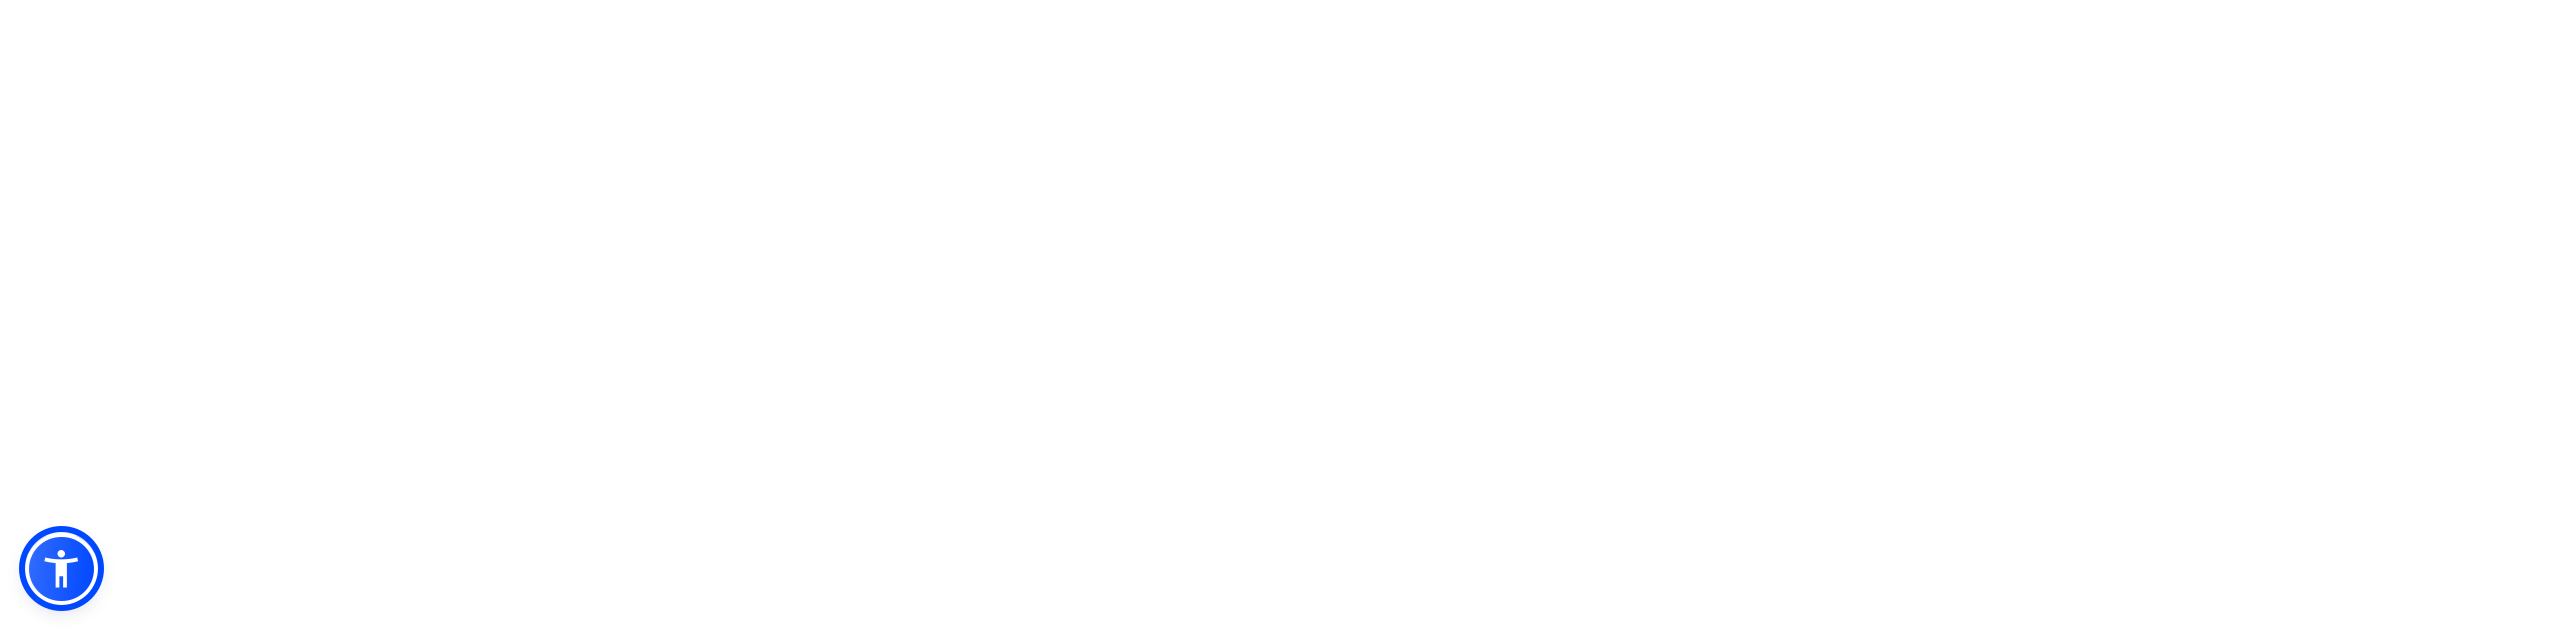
#include <cairo.h>
#include <math.h>
#include <stddef.h>

static cairo_t *c;
static void C(unsigned color){cairo_set_source_rgb(c, (color >> 16) / 255.0, (color >> 8 & 255) / 255.0, (color & 255) / 255.0);}
static void R(double x, double y, double w, double h){cairo_rectangle(c, x, y, w, h);cairo_fill(c);}
static void Q(double x, double y, double w, double h, double r){cairo_new_sub_path(c);cairo_arc(c, x + w - r, y + h - r, r, 0, M_PI / 2);cairo_arc(c, x + r, y + h - r, r, M_PI / 2, M_PI);cairo_arc(c, x + r, y + r, r, M_PI, 1.5 * M_PI);cairo_arc(c, x + w - r, y + r, r, 1.5 * M_PI, 2 * M_PI);cairo_close_path(c);}
static void S(double x, double y, double w, double h, double r, double blur, double alpha){cairo_push_group_with_content(c, CAIRO_CONTENT_ALPHA);cairo_set_operator(c, CAIRO_OPERATOR_SOURCE);for (int i = 15; i >= -15 && fmin(w, h) + blur * i / 3 > 0; i -= 2) {double e = blur * i / 6;cairo_set_source_rgba(c, 0, 0, 0, alpha * erfc((i - 1) / 8.5) / 2);Q(x - e, y - e, w + 2 * e, h + 2 * e, fmax(0, fmin(r + e + blur * .6, fmin(w, h) / 2 + e)));cairo_fill(c);}cairo_pattern_t *soft = cairo_pop_group(c);cairo_mask(c, soft);cairo_pattern_destroy(soft);}
static void I(const char *path, double x, double y, double w, double h){cairo_surface_t *image = cairo_image_surface_create_from_png(path);cairo_save(c);cairo_set_source_surface(c, image, x, y);cairo_rectangle(c, x, y, w, h);cairo_fill(c);cairo_restore(c);cairo_surface_destroy(image);}
int main(void) {
cairo_surface_t *surface = cairo_image_surface_create(CAIRO_FORMAT_RGB24, 2557, 629);
c = cairo_create(surface);
cairo_font_options_t *options = cairo_font_options_create();
cairo_font_options_set_hint_metrics(options, CAIRO_HINT_METRICS_OFF);
cairo_font_options_set_hint_style(options, CAIRO_HINT_STYLE_NONE);
cairo_set_font_options(c, options);
cairo_set_miter_limit(c, 4);
cairo_pattern_t *gradient;
C(0xffffff);
cairo_paint(c);
C(0x5d6494);
S(25,535,73,73,36.5,2.5,.2);
C(0x252c61);
S(25,539,73,72,36,9.5,.15);
cairo_save(c);
Q(25,533,73,72,36);
cairo_clip(c);
gradient = cairo_pattern_create_linear(26,565,97,572);
cairo_pattern_add_color_stop_rgba(gradient,0,0.196,0.424,1,1);
cairo_pattern_add_color_stop_rgba(gradient,1,0,0.282,1,1);
cairo_set_source(c,gradient);
cairo_pattern_destroy(gradient);
R(29,536,65,65);
cairo_restore(c);
Q(27,535,69,68,34);
C(0xffffff);
cairo_set_line_width(c,4);
cairo_stroke(c);
cairo_arc(c,61.5,568.5,39.5,0,2 * M_PI);
C(0x0048ff);
cairo_set_line_width(c,6);
cairo_stroke(c);
I("1.png",44,550,35,38);
cairo_surface_write_to_png(surface, "o.png");
cairo_font_options_destroy(options);
cairo_destroy(c);
cairo_surface_destroy(surface);
return 0;
}
